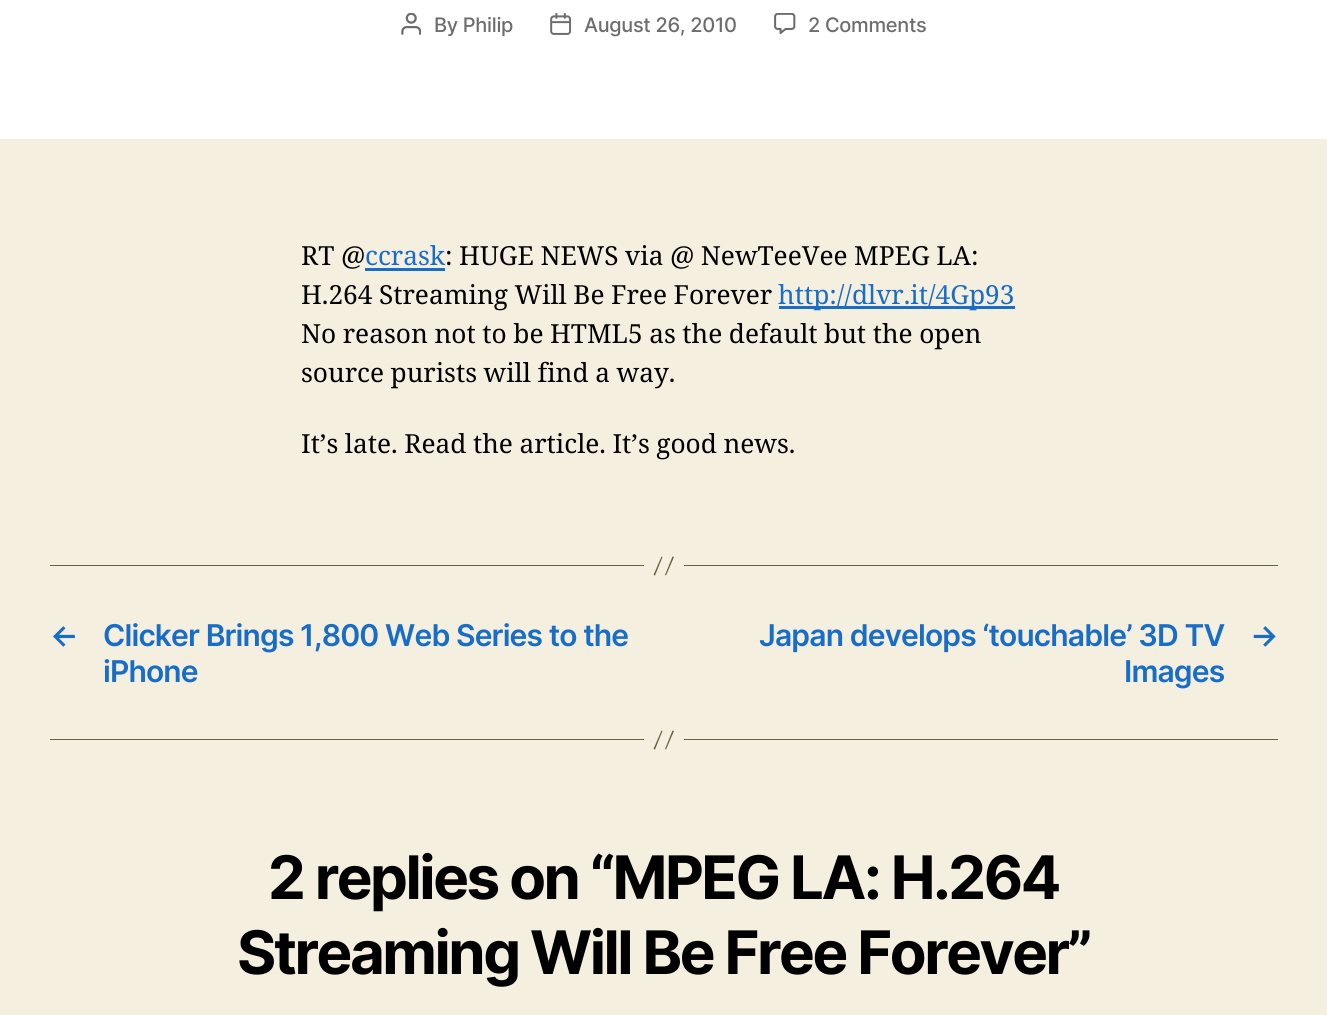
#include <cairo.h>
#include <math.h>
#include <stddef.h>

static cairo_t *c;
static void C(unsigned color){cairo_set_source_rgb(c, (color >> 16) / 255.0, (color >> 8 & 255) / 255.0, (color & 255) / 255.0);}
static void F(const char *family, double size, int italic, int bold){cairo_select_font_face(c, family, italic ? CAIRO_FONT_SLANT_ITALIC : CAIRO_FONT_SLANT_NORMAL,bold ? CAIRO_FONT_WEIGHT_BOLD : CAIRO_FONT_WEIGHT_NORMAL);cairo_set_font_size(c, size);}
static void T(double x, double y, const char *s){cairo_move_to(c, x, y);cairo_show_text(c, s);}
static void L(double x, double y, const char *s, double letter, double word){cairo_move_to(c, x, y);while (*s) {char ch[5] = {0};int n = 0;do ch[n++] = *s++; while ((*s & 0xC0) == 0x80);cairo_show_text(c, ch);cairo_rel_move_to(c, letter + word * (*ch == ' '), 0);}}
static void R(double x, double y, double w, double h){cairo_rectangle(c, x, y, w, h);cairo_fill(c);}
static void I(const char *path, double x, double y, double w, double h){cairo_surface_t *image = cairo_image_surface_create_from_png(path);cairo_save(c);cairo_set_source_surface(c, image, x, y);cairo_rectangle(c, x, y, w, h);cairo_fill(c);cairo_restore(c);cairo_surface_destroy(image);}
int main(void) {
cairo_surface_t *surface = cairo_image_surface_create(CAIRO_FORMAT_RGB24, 1327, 1015);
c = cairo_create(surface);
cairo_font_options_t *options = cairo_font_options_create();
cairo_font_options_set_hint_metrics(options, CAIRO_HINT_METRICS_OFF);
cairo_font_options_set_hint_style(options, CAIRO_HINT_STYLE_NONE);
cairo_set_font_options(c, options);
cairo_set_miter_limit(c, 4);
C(0xf5efe0);
cairo_paint(c);
C(0xffffff);
R(0,0,1327,139);
I("1.png",401,13,20,22);
F("Inter Medium",20,0,0);
C(0x6d6d6d);
L(434,32,"By Philip",-.3,0);
I("2.png",550,13,21,22);
L(584,32,"August 26, 2010",-.3,0);
I("3.png",774,13,22,22);
L(808,32,"2 Comments",-.3,0);
F("Noto Serif",26.25,0,0);
C(0x000000);
L(301,265,"RT @",0,-.25);
C(0x176dc8);
T(365,265,"ccrask");
R(365,268,80,3);
C(0x000000);
L(445,265,": HUGE NEWS via @ NewTeeVee MPEG LA:",0,-.25);
L(301,304,"H.264 Streaming Will Be Free Forever",0,-.25);
C(0x176dc8);
R(779,306,236,3);
T(778,304,"http://dlvr.it/4Gp93");
C(0x000000);
L(301,343,"No reason not to be",0,-.25);
L(550,343,"HTML5 as the default but the open",0,-.25);
L(301,382,"source purists will find a way.",0,-.25);
L(301,453,"It’s late. Read the article. It’s good news.",0,-.25);
C(0x69603e);
R(684,565,594,1);
R(50,565,594,1);
cairo_new_path(c);
cairo_move_to(c,661.5,556.5);
cairo_line_to(c,662.5,557);
cairo_line_to(c,655,575.5);
cairo_line_to(c,653.5,575);
cairo_close_path(c);
cairo_move_to(c,672.5,556.5);
cairo_line_to(c,674,557);
cairo_line_to(c,666,575.5);
cairo_line_to(c,665,575);
cairo_close_path(c);
cairo_fill(c);
F("Inter SemiBold",30,0,0);
C(0x176dc8);
L(50,646,"←",-.85,0);
L(103,646,"Clicker Brings 1,800 Web Series to the",-.85,0);
L(103,682,"iPhone",-.85,0);
L(759,646,"Japan develops ‘touchable’ 3D TV",-.85,0);
L(1124,682,"Images",-.85,0);
L(1250,646,"→",-.85,0);
C(0x69603e);
R(684,739,594,1);
R(50,739,594,1);
cairo_new_path(c);
cairo_move_to(c,661.5,730.5);
cairo_line_to(c,662.5,731);
cairo_line_to(c,655,749.5);
cairo_line_to(c,653.5,749);
cairo_close_path(c);
cairo_move_to(c,672.5,730.5);
cairo_line_to(c,674,731);
cairo_line_to(c,666,749.5);
cairo_line_to(c,665,749);
cairo_close_path(c);
cairo_fill(c);
F("Inter",60,0,1);
C(0x000000);
L(268,899,"2 replies on “MPEG LA: H.264",-2.5,0);
L(237,974,"Streaming Will Be Free Forever”",-2.5,0);
cairo_surface_write_to_png(surface, "o.png");
cairo_font_options_destroy(options);
cairo_destroy(c);
cairo_surface_destroy(surface);
return 0;
}
